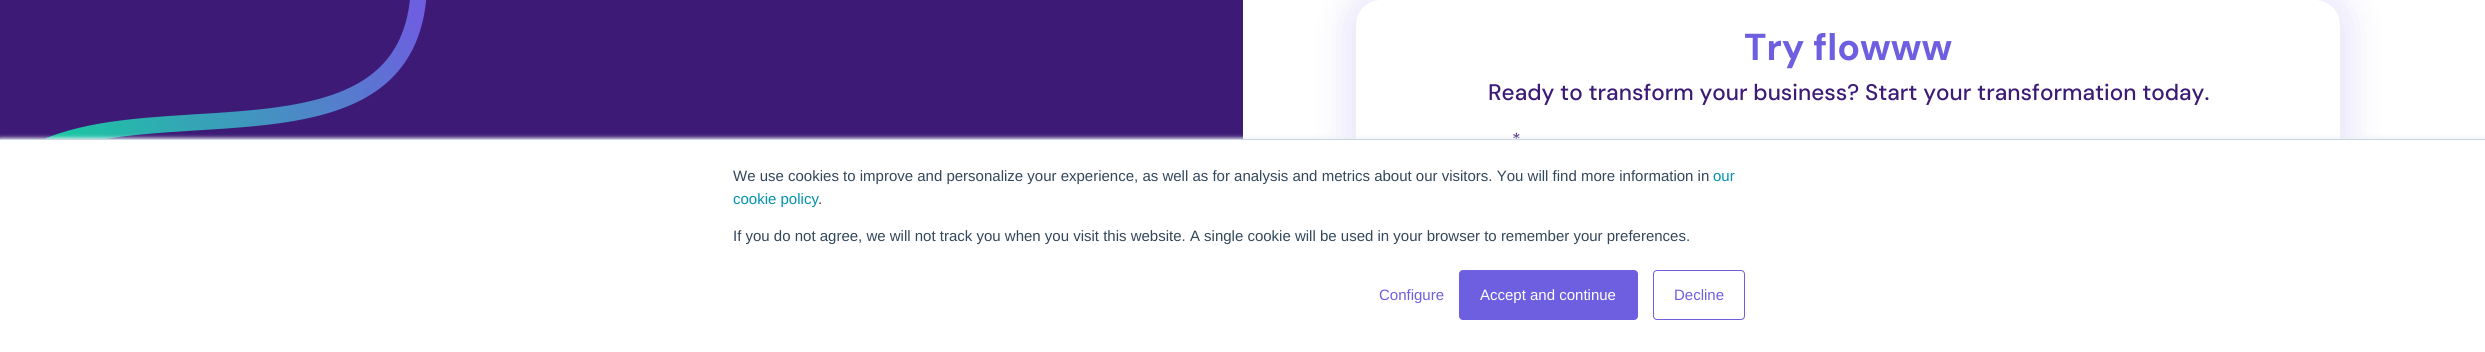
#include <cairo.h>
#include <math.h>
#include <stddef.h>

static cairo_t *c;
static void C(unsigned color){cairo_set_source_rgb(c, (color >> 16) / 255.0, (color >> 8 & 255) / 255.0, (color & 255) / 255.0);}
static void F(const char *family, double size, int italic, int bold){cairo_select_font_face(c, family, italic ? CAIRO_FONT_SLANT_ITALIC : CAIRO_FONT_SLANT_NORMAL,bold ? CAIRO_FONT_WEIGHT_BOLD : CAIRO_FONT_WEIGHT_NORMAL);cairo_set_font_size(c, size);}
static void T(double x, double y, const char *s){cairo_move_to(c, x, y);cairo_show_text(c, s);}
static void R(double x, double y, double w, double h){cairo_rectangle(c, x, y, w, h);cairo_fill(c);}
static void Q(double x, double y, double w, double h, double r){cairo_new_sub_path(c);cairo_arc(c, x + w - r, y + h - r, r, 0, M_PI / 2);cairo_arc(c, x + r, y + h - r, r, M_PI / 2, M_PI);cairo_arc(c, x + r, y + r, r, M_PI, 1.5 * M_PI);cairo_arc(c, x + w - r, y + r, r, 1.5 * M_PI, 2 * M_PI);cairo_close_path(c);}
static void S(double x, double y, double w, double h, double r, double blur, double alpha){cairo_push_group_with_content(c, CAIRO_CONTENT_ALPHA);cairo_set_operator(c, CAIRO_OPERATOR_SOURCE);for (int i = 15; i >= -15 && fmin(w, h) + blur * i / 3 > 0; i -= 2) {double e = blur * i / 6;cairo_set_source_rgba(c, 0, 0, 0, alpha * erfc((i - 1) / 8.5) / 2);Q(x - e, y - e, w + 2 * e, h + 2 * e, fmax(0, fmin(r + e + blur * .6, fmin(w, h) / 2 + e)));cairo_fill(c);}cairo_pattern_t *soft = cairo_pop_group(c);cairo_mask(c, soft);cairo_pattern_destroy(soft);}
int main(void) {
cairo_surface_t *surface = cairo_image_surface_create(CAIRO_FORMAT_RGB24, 2485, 352);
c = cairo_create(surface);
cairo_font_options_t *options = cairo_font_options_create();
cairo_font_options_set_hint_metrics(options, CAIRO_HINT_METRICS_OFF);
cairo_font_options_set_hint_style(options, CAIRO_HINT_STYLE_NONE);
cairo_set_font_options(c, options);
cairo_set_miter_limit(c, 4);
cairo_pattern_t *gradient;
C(0x3c1a75);
cairo_paint(c);
C(0xffffff);
R(1243,0,1242,139);
cairo_new_path(c);
cairo_move_to(c,-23.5,291);
cairo_curve_to(c,-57,-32.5,500,291,409,-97);
gradient = cairo_pattern_create_linear(374,-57,-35,194);
cairo_pattern_add_color_stop_rgba(gradient,0,0.431,0.369,0.878,1);
cairo_pattern_add_color_stop_rgba(gradient,1,0,0.902,0.561,1);
cairo_set_source(c,gradient);
cairo_pattern_destroy(gradient);
cairo_set_line_width(c,16.2);
cairo_stroke(c);
C(0x6e5ee0);
S(1344,-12,1009,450,38,16,.15);
C(0xffffff);
Q(1356,0,984,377,25);
cairo_fill(c);
F("DM Sans",37.5,0,1);
C(0x6e5ee0);
T(1744,60,"Try flowww");
F("DM Sans Medium",22.5,0,0);
C(0x3c1a75);
T(1488,100,"Ready to transform your business? Start your transformation today.");
F("DM Sans",18,0,0);
T(1512,146,"*");
C(0xeaf0f6);
S(0,138,2485,213,0,2,1);
C(0xffffff);
R(0,140,2485,212);
C(0xcbd6e2);
R(0,139,2485,1);
F("Liberation Sans",15,0,0);
C(0x33475b);
T(733,181,"We use cookies to improve and personalize your experience, as well as for analysis and metrics about our visitors. You will find more information in");
C(0x0091ae);
T(1713,181,"our");
T(733,204,"cookie policy");
C(0x33475b);
T(818,204,".");
T(733,241,"If you do not agree, we will not track you when you visit this website. A single cookie will be used in your browser to remember your preferences.");
C(0x6e5ee0);
T(1379,300,"Configure");
Q(1459.5,270.5,178,49,3.5);
cairo_fill_preserve(c);
cairo_set_line_width(c,1);
cairo_stroke(c);
C(0xffffff);
T(1480,300,"Accept and continue");
Q(1653.5,270.5,91,49,3.5);
C(0x6e5ee0);
cairo_stroke(c);
T(1674,300,"Decline");
cairo_surface_write_to_png(surface, "o.png");
cairo_font_options_destroy(options);
cairo_destroy(c);
cairo_surface_destroy(surface);
return 0;
}
